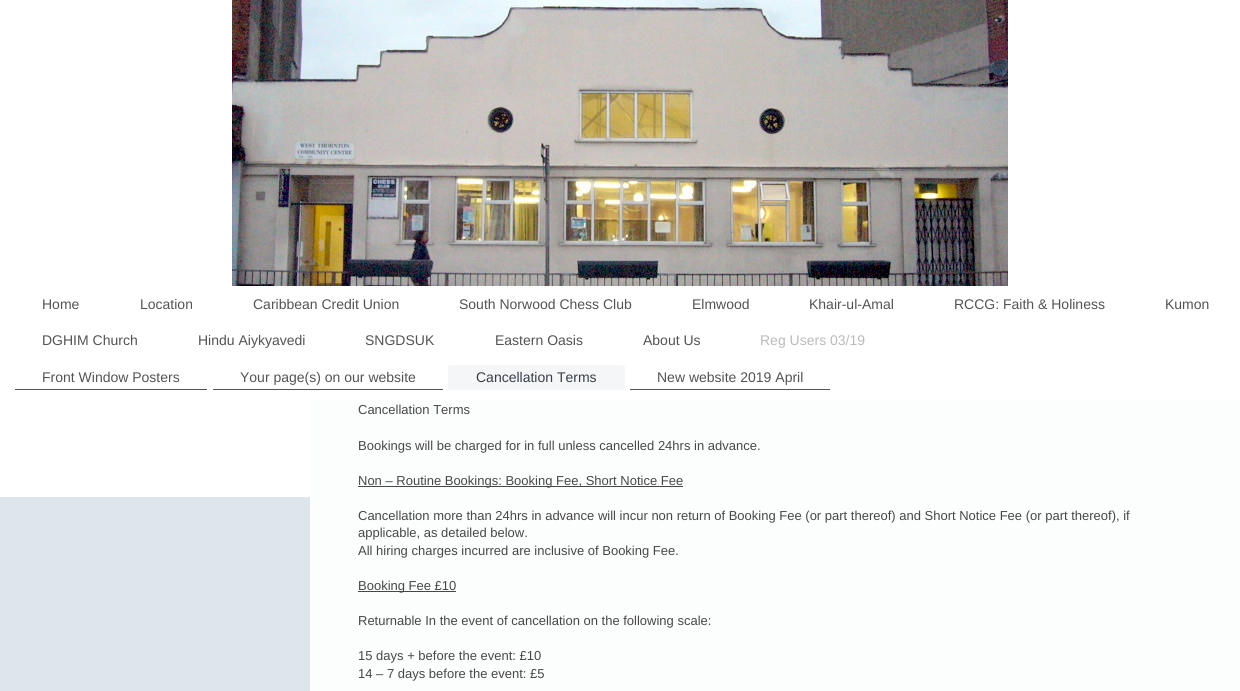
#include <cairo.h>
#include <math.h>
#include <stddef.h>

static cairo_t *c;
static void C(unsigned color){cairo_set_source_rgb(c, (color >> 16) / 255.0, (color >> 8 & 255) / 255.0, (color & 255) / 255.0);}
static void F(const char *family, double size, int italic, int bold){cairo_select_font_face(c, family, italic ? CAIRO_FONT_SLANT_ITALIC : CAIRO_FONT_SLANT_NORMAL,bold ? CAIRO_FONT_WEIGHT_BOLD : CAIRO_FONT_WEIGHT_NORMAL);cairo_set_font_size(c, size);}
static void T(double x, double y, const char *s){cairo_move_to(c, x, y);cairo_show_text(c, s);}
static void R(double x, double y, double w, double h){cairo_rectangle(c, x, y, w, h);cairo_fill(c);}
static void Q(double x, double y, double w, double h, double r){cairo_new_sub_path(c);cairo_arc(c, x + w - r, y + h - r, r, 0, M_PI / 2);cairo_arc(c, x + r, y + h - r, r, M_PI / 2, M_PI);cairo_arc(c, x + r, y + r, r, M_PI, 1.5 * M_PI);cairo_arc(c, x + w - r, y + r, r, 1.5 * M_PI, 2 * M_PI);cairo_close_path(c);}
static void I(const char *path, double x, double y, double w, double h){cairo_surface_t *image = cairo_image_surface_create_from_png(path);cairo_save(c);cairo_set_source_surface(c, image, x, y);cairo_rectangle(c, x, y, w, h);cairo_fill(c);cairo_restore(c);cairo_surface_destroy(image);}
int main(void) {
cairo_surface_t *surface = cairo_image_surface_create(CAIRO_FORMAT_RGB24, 1240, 691);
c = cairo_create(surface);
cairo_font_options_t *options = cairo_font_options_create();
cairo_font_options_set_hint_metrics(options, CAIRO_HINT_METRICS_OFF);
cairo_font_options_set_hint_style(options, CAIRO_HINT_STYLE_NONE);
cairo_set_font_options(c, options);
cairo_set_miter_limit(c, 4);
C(0xdce6eb);
cairo_paint(c);
C(0xffffff);
R(0,0,1240,401);
I("1.png",232,0,776,286);
F("Liberation Sans",14,0,0);
C(0x535353);
T(42,309,"Home");
T(140,309,"Location");
T(253,309,"Caribbean Credit Union");
T(459,309,"South Norwood Chess Club");
T(692,309,"Elmwood");
T(809,309,"Khair-ul-Amal");
T(954,309,"RCCG: Faith & Holiness");
T(1165,309,"Kumon");
T(42,345,"DGHIM Church");
T(198,345,"Hindu Aiykyavedi");
T(365,345,"SNGDSUK");
T(495,345,"Eastern Oasis");
T(643,345,"About Us");
C(0xbababa);
T(760,345,"Reg Users 03/19");
C(0x535353);
R(15,389,192,1);
T(42,382,"Front Window Posters");
R(213,389,230,1);
T(240,382,"Your page(s) on our website");
C(0xf5f6f8);
Q(448,365,177,25,2);
cairo_fill(c);
C(0x383d46);
T(476,382,"Cancellation Terms");
C(0x535353);
R(630,389,200,1);
T(657,382,"New website 2019 April");
C(0xffffff);
R(0,401,310,96);
C(0xfcfdfd);
R(310,401,930,290);
F("Liberation Sans",13,0,0);
C(0x474747);
T(358,414,"Cancellation Terms");
T(358,450,"Bookings will be charged for in full unless cancelled 24hrs in advance.");
R(358,486,325,1);
T(358,485,"Non – Routine Bookings: Booking Fee, Short Notice Fee");
T(358,520,"Cancellation more than 24hrs in advance will incur non return of Booking Fee (or part thereof) and Short Notice Fee (or part thereof), if");
T(358,537,"applicable, as detailed below.");
T(358,555,"All hiring charges incurred are inclusive of Booking Fee.");
R(358,591,98,1);
T(358,590,"Booking Fee £10");
T(358,625,"Returnable In the event of cancellation on the following scale:");
T(358,660,"15 days + before the event: £10");
T(358,678,"14 – 7 days before the event: £5");
cairo_surface_write_to_png(surface, "o.png");
cairo_font_options_destroy(options);
cairo_destroy(c);
cairo_surface_destroy(surface);
return 0;
}
